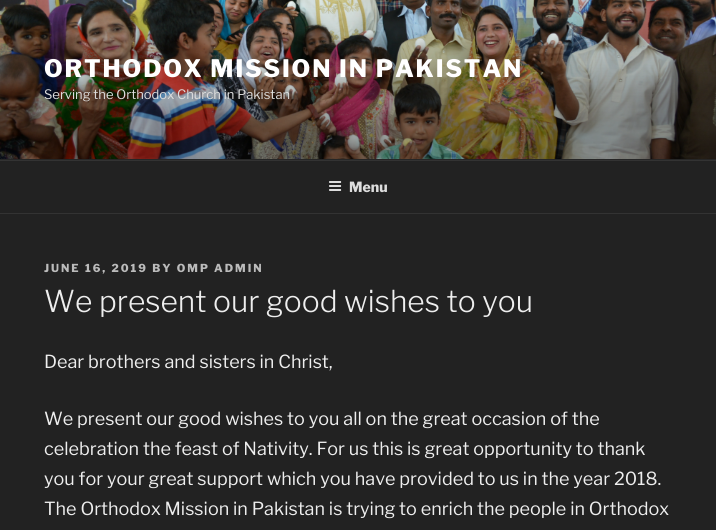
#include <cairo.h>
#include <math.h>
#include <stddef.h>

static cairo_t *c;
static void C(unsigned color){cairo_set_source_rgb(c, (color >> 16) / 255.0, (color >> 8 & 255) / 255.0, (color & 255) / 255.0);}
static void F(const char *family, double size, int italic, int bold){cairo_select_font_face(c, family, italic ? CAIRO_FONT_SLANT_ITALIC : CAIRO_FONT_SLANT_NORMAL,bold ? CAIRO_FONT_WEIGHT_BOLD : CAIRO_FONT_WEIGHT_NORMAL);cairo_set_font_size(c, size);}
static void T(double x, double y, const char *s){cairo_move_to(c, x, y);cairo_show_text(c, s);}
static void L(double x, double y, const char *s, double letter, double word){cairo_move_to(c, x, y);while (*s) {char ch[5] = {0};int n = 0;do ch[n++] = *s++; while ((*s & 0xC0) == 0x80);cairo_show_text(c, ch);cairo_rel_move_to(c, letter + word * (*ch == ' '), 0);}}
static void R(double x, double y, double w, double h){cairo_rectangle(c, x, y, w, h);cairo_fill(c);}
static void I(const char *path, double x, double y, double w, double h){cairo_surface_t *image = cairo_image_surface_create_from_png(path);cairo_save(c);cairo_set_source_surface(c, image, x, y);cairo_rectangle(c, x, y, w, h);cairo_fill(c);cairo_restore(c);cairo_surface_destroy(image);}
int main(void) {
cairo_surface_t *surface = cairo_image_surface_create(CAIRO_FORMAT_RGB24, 716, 530);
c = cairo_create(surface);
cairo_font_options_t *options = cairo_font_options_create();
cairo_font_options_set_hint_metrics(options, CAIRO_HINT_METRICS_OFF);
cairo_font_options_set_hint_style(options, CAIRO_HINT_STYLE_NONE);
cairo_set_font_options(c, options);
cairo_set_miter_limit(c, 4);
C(0x222222);
cairo_paint(c);
C(0x262626);
R(0,159,716,1);
I("1.png",0,0,716,159);
F("Libre Franklin ExtraBold",24,0,0);
C(0xffffff);
L(44,77,"ORTHODOX MISSION IN PAKISTAN",1.9,0);
F("Libre Franklin",13,0,0);
C(0xdddddd);
T(44,99,"Serving the Orthodox Church in Pakistan");
C(0x333333);
R(0,160,716,1);
R(0,213,716,1);
I("2.png",329,181,13,10);
F("Libre Franklin ExtraBold",14,0,0);
C(0xdddddd);
T(349,192,"Menu");
F("Libre Franklin ExtraBold",11,0,0);
C(0xbbbbbb);
L(44,272,"JUNE 16, 2019 BY OMP ADMIN",2,0);
F("Libre Franklin Light",30,0,0);
C(0xeeeeee);
T(44,312,"We present our good wishes to you");
F("Libre Franklin",18,0,0);
T(44,368,"Dear brothers and sisters in Christ,");
T(44,425,"We present our good wishes to you all on the great occasion of the");
T(44,455,"celebration the feast of Nativity. For us this is great opportunity to thank");
T(44,485,"you for your great support which you have provided to us in the year 2018.");
T(44,515,"The Orthodox Mission in Pakistan is trying to enrich the people in Orthodox");
cairo_surface_write_to_png(surface, "o.png");
cairo_font_options_destroy(options);
cairo_destroy(c);
cairo_surface_destroy(surface);
return 0;
}
